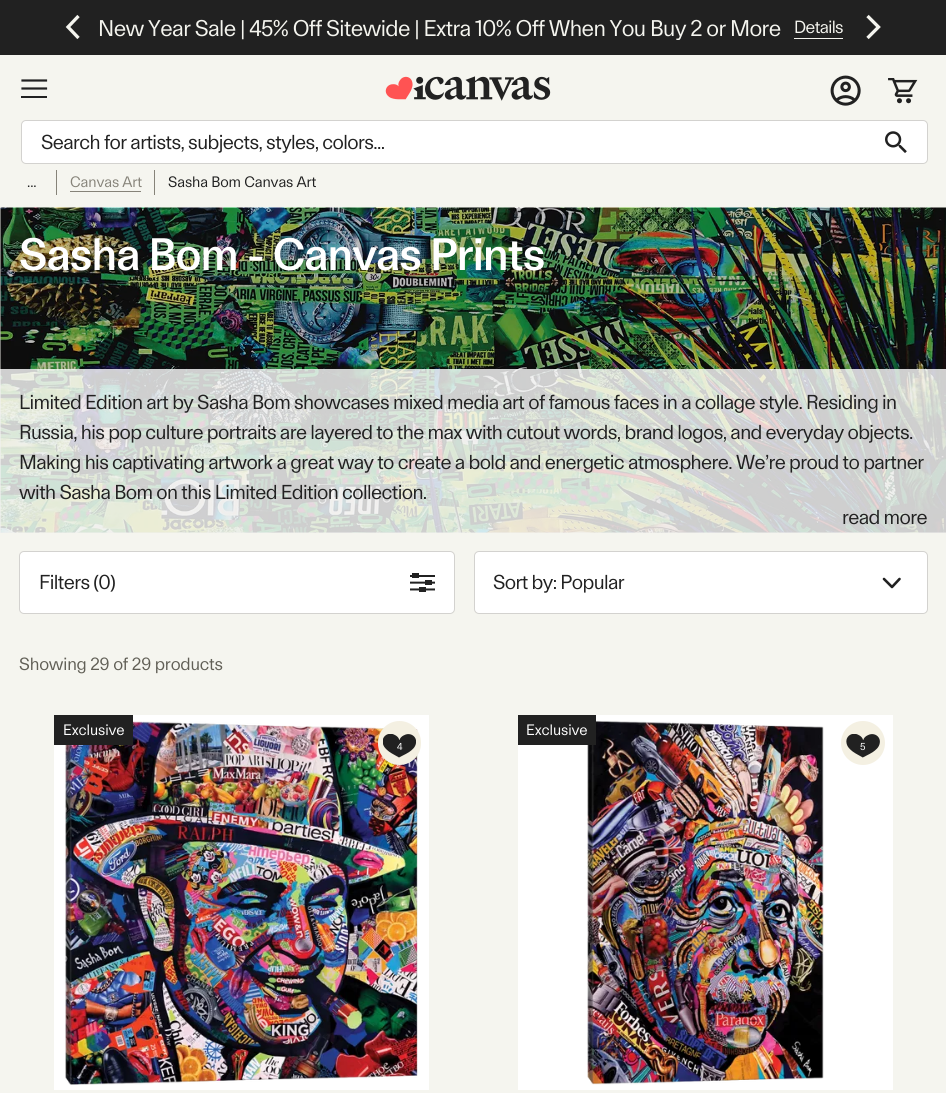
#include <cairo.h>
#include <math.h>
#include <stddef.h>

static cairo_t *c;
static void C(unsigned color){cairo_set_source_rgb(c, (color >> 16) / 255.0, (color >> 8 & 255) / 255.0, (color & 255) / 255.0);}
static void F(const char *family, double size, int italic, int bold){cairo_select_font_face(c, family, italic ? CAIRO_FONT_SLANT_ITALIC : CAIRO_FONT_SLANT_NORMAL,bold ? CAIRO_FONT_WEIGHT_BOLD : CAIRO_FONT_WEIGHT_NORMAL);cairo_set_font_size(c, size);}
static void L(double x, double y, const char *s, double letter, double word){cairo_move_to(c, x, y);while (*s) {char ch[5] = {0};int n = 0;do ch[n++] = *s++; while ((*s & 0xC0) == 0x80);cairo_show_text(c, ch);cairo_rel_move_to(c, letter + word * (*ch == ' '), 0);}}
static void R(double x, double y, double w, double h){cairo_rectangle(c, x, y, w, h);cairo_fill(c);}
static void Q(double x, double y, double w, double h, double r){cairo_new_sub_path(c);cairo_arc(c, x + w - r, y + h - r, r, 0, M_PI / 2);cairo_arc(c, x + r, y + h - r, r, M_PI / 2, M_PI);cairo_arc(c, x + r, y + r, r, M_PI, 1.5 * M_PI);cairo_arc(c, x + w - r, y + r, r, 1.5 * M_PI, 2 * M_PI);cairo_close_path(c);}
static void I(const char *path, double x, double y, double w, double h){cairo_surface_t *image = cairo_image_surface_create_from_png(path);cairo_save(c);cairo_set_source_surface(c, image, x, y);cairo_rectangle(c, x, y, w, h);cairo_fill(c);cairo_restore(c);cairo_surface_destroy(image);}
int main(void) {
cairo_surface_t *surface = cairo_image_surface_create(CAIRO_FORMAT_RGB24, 946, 1093);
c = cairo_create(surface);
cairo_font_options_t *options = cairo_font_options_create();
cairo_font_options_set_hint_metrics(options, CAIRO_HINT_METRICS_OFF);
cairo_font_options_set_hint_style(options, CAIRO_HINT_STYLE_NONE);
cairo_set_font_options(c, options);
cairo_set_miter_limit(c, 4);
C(0xf5f5ef);
cairo_paint(c);
C(0xb8b8b3);
R(0,208,1,325);
C(0x868379);
R(56,169,1,26);
R(154,169,1,26);
C(0xf5f5ef);
R(56,169,99,1);
C(0x212121);
R(0,0,946,55);
cairo_new_path(c);
cairo_move_to(c,78.5,16);
cairo_line_to(c,68,27);
cairo_line_to(c,78.5,38);
C(0xf5f5ef);
cairo_set_line_width(c,3.3);
cairo_stroke(c);
cairo_save(c);
cairo_rectangle(c,85,16,776,24);
cairo_clip(c);
F("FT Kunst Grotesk",22.5,0,0);
L(98,36,"New Year Sale | 45% Off Sitewide | Extra 10% Off When You Buy 2 or More",-.62,0);
cairo_restore(c);
F("FT Kunst Grotesk",17.5,0,0);
L(794,33,"Details",-.62,0);
R(794,38,49,1);
cairo_new_path(c);
cairo_move_to(c,867.5,38);
cairo_line_to(c,878.5,27);
cairo_line_to(c,867.5,16);
cairo_stroke(c);
cairo_new_path(c);
cairo_move_to(c,22.5,80.5);
cairo_line_to(c,46,80.5);
cairo_move_to(c,22.5,88.5);
cairo_line_to(c,46,88.5);
C(0x212121);
cairo_set_line_width(c,2.2);
cairo_set_line_cap(c,CAIRO_LINE_CAP_SQUARE);
cairo_stroke(c);
R(21,96,26,2);
I("1.png",385,76,166,25);
I("2.png",830,75,31,31);
I("3.png",888,78,30,26);
C(0xffffff);
Q(21.5,120.5,906,43,4.5);
cairo_fill_preserve(c);
C(0xd3d2cf);
cairo_set_line_width(c,1);
cairo_set_line_cap(c,CAIRO_LINE_CAP_BUTT);
cairo_stroke(c);
F("FT Kunst Grotesk",20,0,0);
C(0x212121);
L(41,149,"Search for artists, subjects, styles, colors...",-.6,0);
I("4.png",885,131,22,22);
F("FT Kunst Grotesk",15,0,0);
L(27,187,"...",-.1,0);
C(0x868379);
L(70,187,"Canvas Art",-.1,0);
R(70,191,71,1);
C(0x212121);
L(168,187,"Sasha Bom Canvas Art",-.1,0);
C(0xb7b4aa);
R(1,532,945,1);
I("5.png",0,207,946,326);
F("FT Kunst Grotesk Medium",45,0,0);
C(0xffffff);
L(19,270,"Sasha Bom - Canvas Prints",-.9,0);
cairo_set_source_rgba(c,1,1,1,0.8);
R(0,369,946,164);
F("FT Kunst Grotesk",20,0,0);
C(0x212121);
L(19,409,"Limited Edition art by Sasha Bom showcases mixed media art of famous faces in a collage style. Residing in",-.6,0);
L(19,439,"Russia, his pop culture portraits are layered to the max with cutout words, brand logos, and everyday objects.",-.6,0);
L(19,469,"Making his captivating artwork a great way to create a bold and energetic atmosphere. We’re proud to partner",-.6,0);
L(19,499,"with Sasha Bom on this Limited Edition collection.",-.6,0);
L(842,524,"read more",-.6,0);
C(0xffffff);
Q(19.5,551.5,435,62,4.5);
cairo_fill_preserve(c);
C(0xd3d2cf);
cairo_stroke(c);
C(0x212121);
L(39,589,"Filters (0)",-.6,0);
I("6.png",410,573,25,19);
C(0xffffff);
Q(474.5,551.5,453,62,4.5);
cairo_fill_preserve(c);
C(0xd3d2cf);
cairo_stroke(c);
C(0x212121);
L(493,589,"Sort by: Popular",-.6,0);
cairo_new_path(c);
cairo_move_to(c,884,579);
cairo_line_to(c,892,587);
cairo_line_to(c,899.5,579);
cairo_set_line_width(c,2.6);
cairo_set_line_cap(c,CAIRO_LINE_CAP_ROUND);
cairo_set_line_join(c,CAIRO_LINE_JOIN_ROUND);
cairo_stroke(c);
F("FT Kunst Grotesk",17.5,0,0);
C(0x615f56);
L(19,670,"Showing 29 of 29 products",-.2,0);
C(0xffffff);
R(54,715,375,375);
I("7.png",65,721,353,364);
C(0x212121);
R(54,715,79,30);
F("FT Kunst Grotesk",15,0,0);
C(0xffffff);
L(63,735,"Exclusive",-.1,0);
C(0xf4f0e2);
Q(378,721,43,44,21.5);
cairo_fill(c);
I("8.png",383,734,33,24);
F("FT Kunst Grotesk",10,0,0);
C(0xffffff);
L(397,750,"4",-.2,0);
R(518,715,375,375);
I("9.png",587,720,237,365);
C(0x212121);
R(518,715,78,30);
F("FT Kunst Grotesk",15,0,0);
C(0xffffff);
L(526,735,"Exclusive",-.1,0);
C(0xf4f0e2);
cairo_new_path(c);
cairo_arc(c,863,743,22,0,2 * M_PI);
cairo_fill(c);
I("10.png",846,734,34,24);
F("FT Kunst Grotesk",10,0,0);
C(0xffffff);
L(860,750,"5",-.2,0);
cairo_surface_write_to_png(surface, "o.png");
cairo_font_options_destroy(options);
cairo_destroy(c);
cairo_surface_destroy(surface);
return 0;
}
